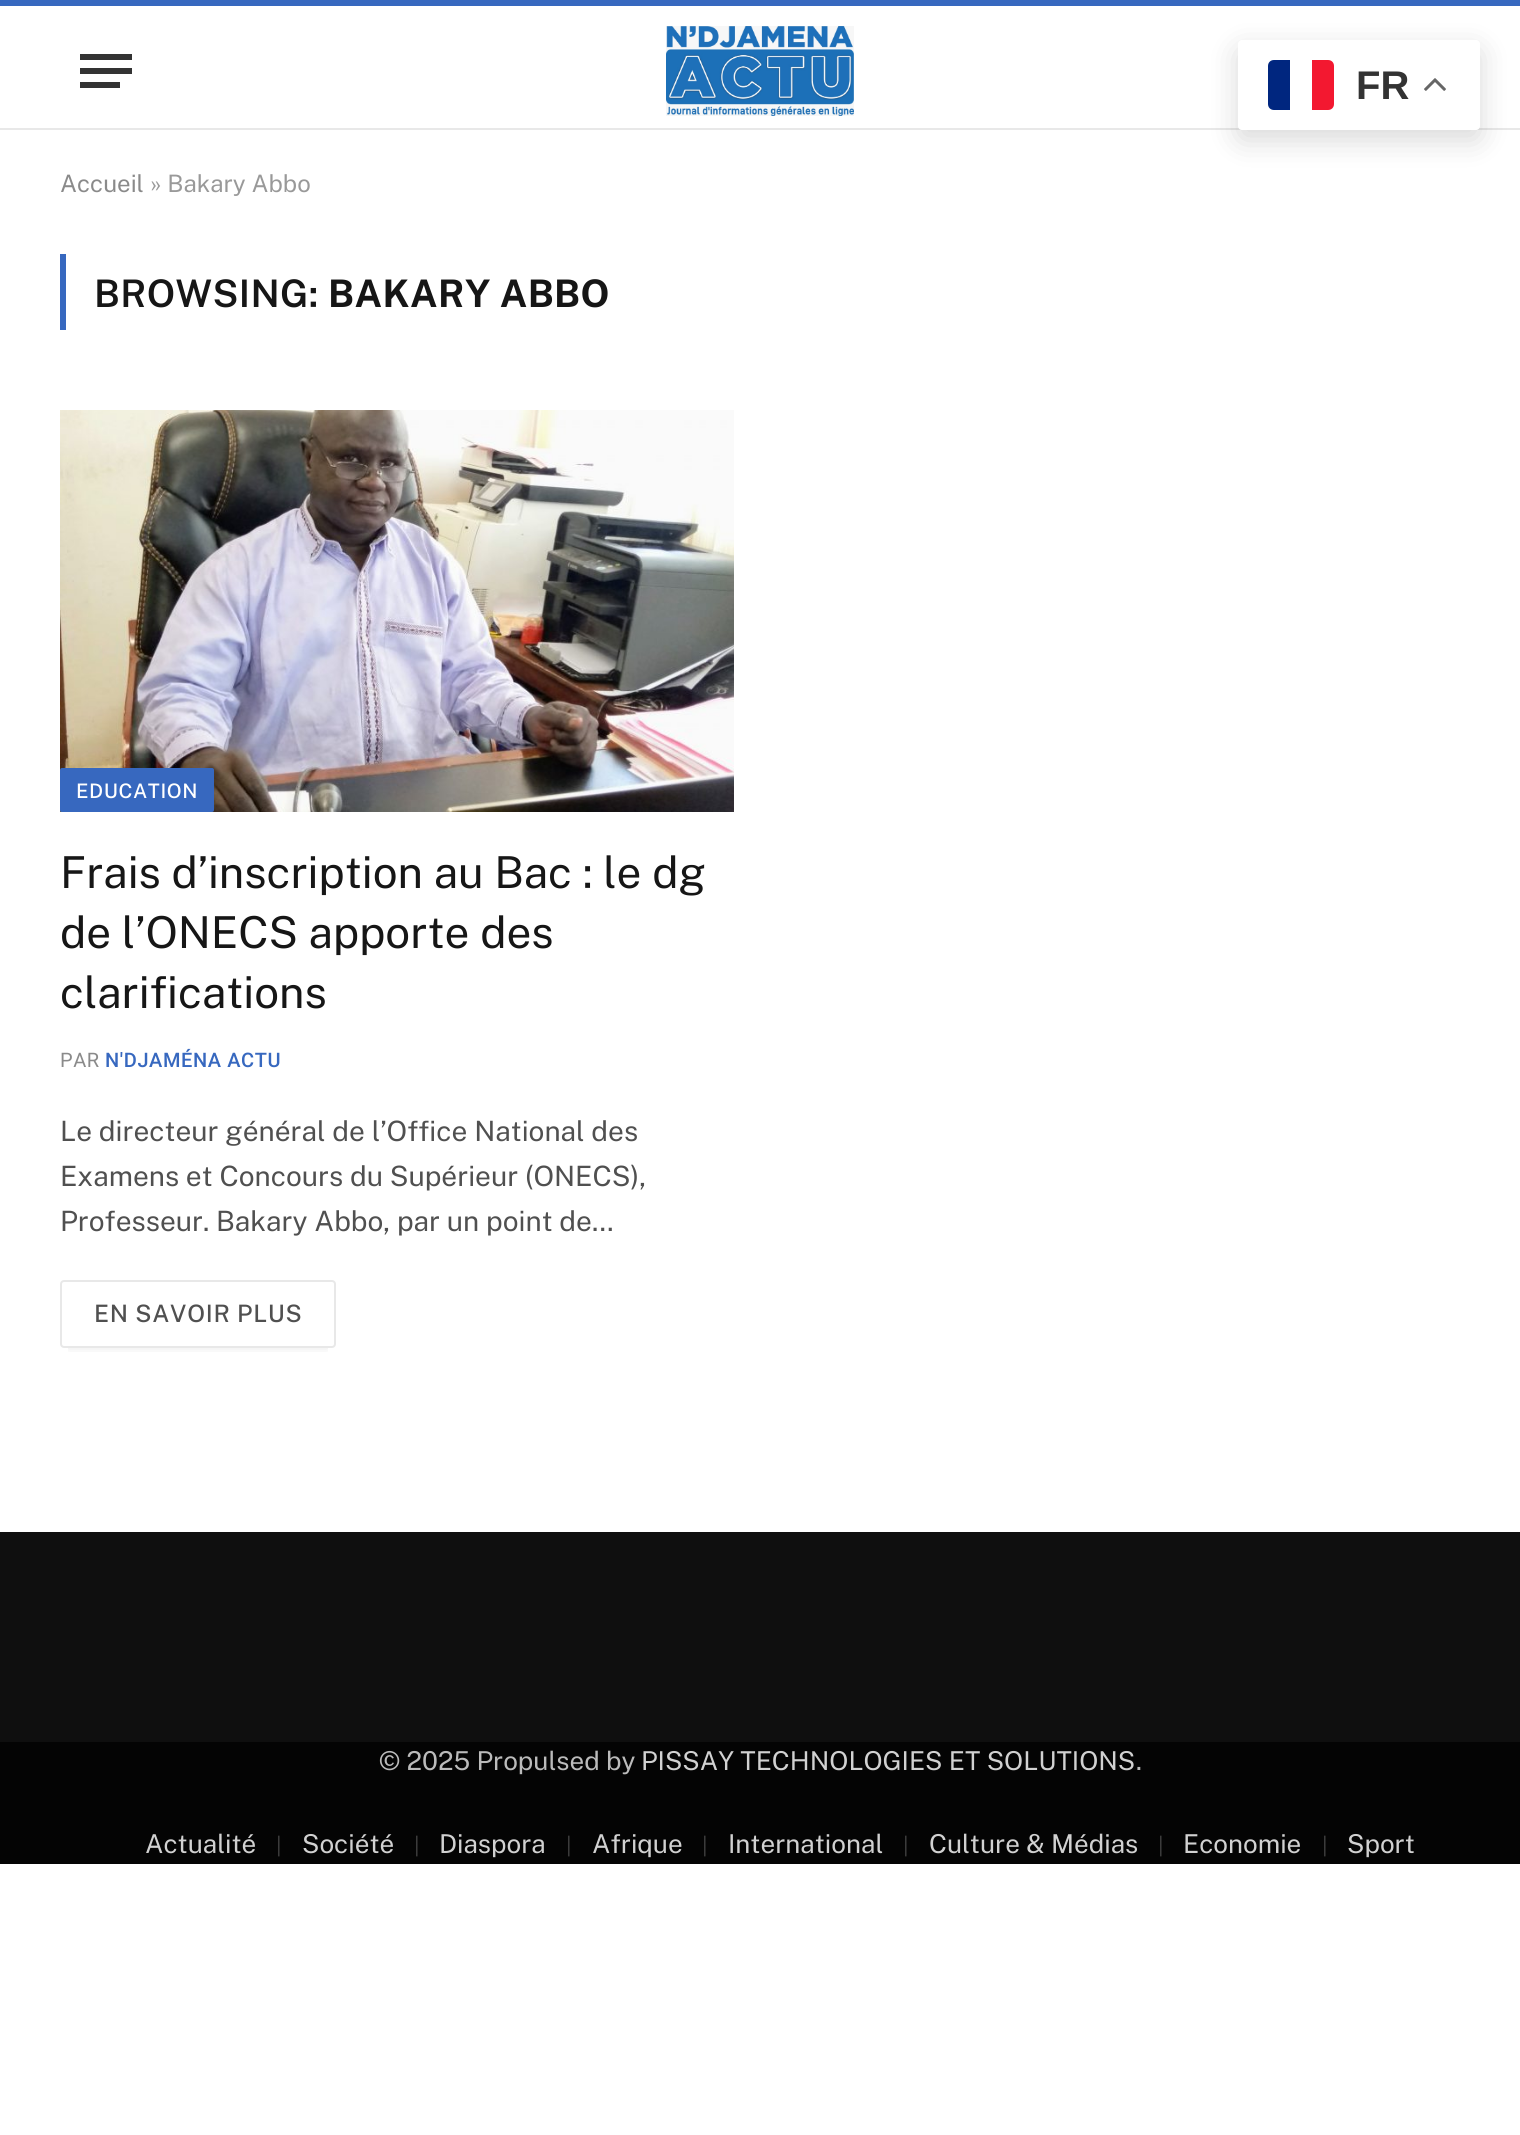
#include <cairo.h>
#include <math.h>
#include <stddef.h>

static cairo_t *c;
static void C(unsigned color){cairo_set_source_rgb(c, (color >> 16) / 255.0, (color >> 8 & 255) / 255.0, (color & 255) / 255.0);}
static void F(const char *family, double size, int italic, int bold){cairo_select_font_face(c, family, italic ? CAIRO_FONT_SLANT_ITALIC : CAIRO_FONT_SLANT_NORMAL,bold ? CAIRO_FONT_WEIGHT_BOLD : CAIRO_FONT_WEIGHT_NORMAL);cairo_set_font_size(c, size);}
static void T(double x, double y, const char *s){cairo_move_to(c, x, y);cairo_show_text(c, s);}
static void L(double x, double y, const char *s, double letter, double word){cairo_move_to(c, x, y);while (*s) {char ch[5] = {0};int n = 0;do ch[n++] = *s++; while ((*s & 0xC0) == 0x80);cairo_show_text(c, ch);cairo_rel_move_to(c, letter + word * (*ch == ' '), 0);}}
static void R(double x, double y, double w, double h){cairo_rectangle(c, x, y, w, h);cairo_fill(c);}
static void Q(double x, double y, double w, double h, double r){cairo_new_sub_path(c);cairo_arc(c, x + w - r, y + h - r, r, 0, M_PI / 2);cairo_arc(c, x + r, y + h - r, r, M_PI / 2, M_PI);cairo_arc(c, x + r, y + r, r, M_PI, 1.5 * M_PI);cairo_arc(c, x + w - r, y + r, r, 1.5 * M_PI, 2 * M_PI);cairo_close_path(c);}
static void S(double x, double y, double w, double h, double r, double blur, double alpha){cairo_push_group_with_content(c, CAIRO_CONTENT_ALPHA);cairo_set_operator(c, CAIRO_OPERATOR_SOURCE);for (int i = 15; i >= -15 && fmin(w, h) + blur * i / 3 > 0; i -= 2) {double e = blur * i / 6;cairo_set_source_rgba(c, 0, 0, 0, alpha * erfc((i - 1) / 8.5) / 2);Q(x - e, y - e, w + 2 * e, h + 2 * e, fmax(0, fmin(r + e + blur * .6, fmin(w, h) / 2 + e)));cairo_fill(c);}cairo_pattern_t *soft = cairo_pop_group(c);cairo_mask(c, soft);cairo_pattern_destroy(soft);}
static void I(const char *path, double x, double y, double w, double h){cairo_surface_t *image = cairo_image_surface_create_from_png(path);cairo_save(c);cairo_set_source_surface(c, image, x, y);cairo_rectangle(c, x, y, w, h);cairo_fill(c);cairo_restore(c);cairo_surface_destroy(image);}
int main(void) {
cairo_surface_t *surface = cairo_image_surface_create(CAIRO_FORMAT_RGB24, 1520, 2135);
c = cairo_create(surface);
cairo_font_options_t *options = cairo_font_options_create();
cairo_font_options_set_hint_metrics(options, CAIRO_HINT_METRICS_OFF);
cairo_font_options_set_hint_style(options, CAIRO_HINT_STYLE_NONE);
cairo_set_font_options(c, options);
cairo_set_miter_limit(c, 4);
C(0xffffff);
cairo_paint(c);
C(0x3768bf);
R(0,0,1520,6);
C(0xe8e8e8);
R(0,128,1520,2);
C(0x000000);
S(1238,50,242,90,4,15,.15);
C(0xffffff);
Q(1238,40,242,90,4);
cairo_fill(c);
C(0x00267f);
cairo_new_path(c);
cairo_move_to(c,1274,60);
cairo_line_to(c,1290,60);
cairo_line_to(c,1290,110);
cairo_line_to(c,1274,110);
cairo_curve_to(c,1270.5,110,1268,107.5,1268,104);
cairo_line_to(c,1268,66);
cairo_curve_to(c,1268,62.5,1270.5,60,1274,60);
cairo_close_path(c);
cairo_fill(c);
C(0xf31830);
cairo_new_path(c);
cairo_move_to(c,1312,60);
cairo_line_to(c,1328,60);
cairo_curve_to(c,1331.5,60,1334,62.5,1334,66);
cairo_line_to(c,1334,104);
cairo_curve_to(c,1334,107.5,1331.5,110,1328,110);
cairo_line_to(c,1312,110);
cairo_close_path(c);
cairo_fill(c);
F("Liberation Sans",40,0,1);
C(0x333333);
T(1356,99,"FR");
I("1.png",1424,78,22,13);
R(80,82,40,6);
R(80,54,52,6);
R(80,68,52,6);
I("2.png",666,26,188,90);
F("Public Sans",24,0,0);
C(0x8a8a8a);
T(60,192,"Accueil");
C(0x999999);
T(150,192,"» Bakary Abbo");
C(0x3768bf);
R(60,254,6,76);
F("Public Sans SemiBold",38,0,0);
C(0x161616);
L(94,307,"BROWSING:",.4,0);
F("Public Sans",38,0,1);
L(328,307,"BAKARY ABBO",.4,0);
I("3.png",60,410,674,402);
C(0x3768bf);
Q(60,768,154,44,2);
cairo_fill(c);
F("Public Sans Medium",20,0,0);
C(0xffffff);
L(76,798,"EDUCATION",.6,0);
F("Public Sans",44,0,0);
C(0x161616);
T(60,888,"Frais d’inscription au Bac : le dg");
T(60,948,"de l’ONECS apporte des");
T(60,1008,"clarifications");
F("Roboto",20,0,0);
C(0x8a8a8a);
L(60,1067,"PAR",.6,0);
F("Roboto Medium",20,0,0);
C(0x3768bf);
L(105,1067,"N'DJAMÉNA ACTU",.6,0);
F("Public Sans",28,0,0);
C(0x505050);
T(60,1141,"Le directeur général de l’Office National des");
T(60,1186,"Examens et Concours du Supérieur (ONECS),");
T(60,1231,"Professeur. Bakary Abbo, par un point de…");
cairo_save(c);
cairo_rectangle(c,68,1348,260,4);
cairo_clip(c);
C(0x000000);
S(68,1292,260,52,0,7,.16);
cairo_restore(c);
Q(61,1281,274,66,3);
C(0xe8e8e8);
cairo_stroke(c);
F("Public Sans Medium",24,0,0);
C(0x505050);
L(94,1322,"EN SAVOIR PLUS",.75,0);
C(0x0f0f0f);
R(0,1532,1520,210);
C(0x040404);
R(0,1742,1520,122);
F("Public Sans",26,0,0);
C(0xbbbbbb);
T(379,1770,"© 2025 Propulsed by");
C(0xd1d1d1);
T(641,1770,"PISSAY TECHNOLOGIES ET SOLUTIONS");
C(0xbbbbbb);
T(1136,1770,".");
C(0xd1d1d1);
T(145,1853,"Actualité");
F("Public Sans",21,0,0);
C(0x3b3b3b);
T(276,1853,"|");
F("Public Sans",26,0,0);
C(0xd1d1d1);
T(302,1853,"Société");
F("Public Sans",21,0,0);
C(0x3b3b3b);
T(414,1853,"|");
F("Public Sans",26,0,0);
C(0xd1d1d1);
T(439,1853,"Diaspora");
F("Public Sans",21,0,0);
C(0x3b3b3b);
T(566,1853,"|");
F("Public Sans",26,0,0);
C(0xd1d1d1);
T(592,1853,"Afrique");
F("Public Sans",21,0,0);
C(0x3b3b3b);
T(702,1853,"|");
F("Public Sans",26,0,0);
C(0xd1d1d1);
T(728,1853,"International");
F("Public Sans",21,0,0);
C(0x3b3b3b);
T(903,1853,"|");
F("Public Sans",26,0,0);
C(0xd1d1d1);
T(929,1853,"Culture & Médias");
F("Public Sans",21,0,0);
C(0x3b3b3b);
T(1158,1853,"|");
F("Public Sans",26,0,0);
C(0xd1d1d1);
T(1183,1853,"Economie");
F("Public Sans",21,0,0);
C(0x3b3b3b);
T(1322,1853,"|");
F("Public Sans",26,0,0);
C(0xd1d1d1);
T(1347,1853,"Sport");
cairo_surface_write_to_png(surface, "o.png");
cairo_font_options_destroy(options);
cairo_destroy(c);
cairo_surface_destroy(surface);
return 0;
}
